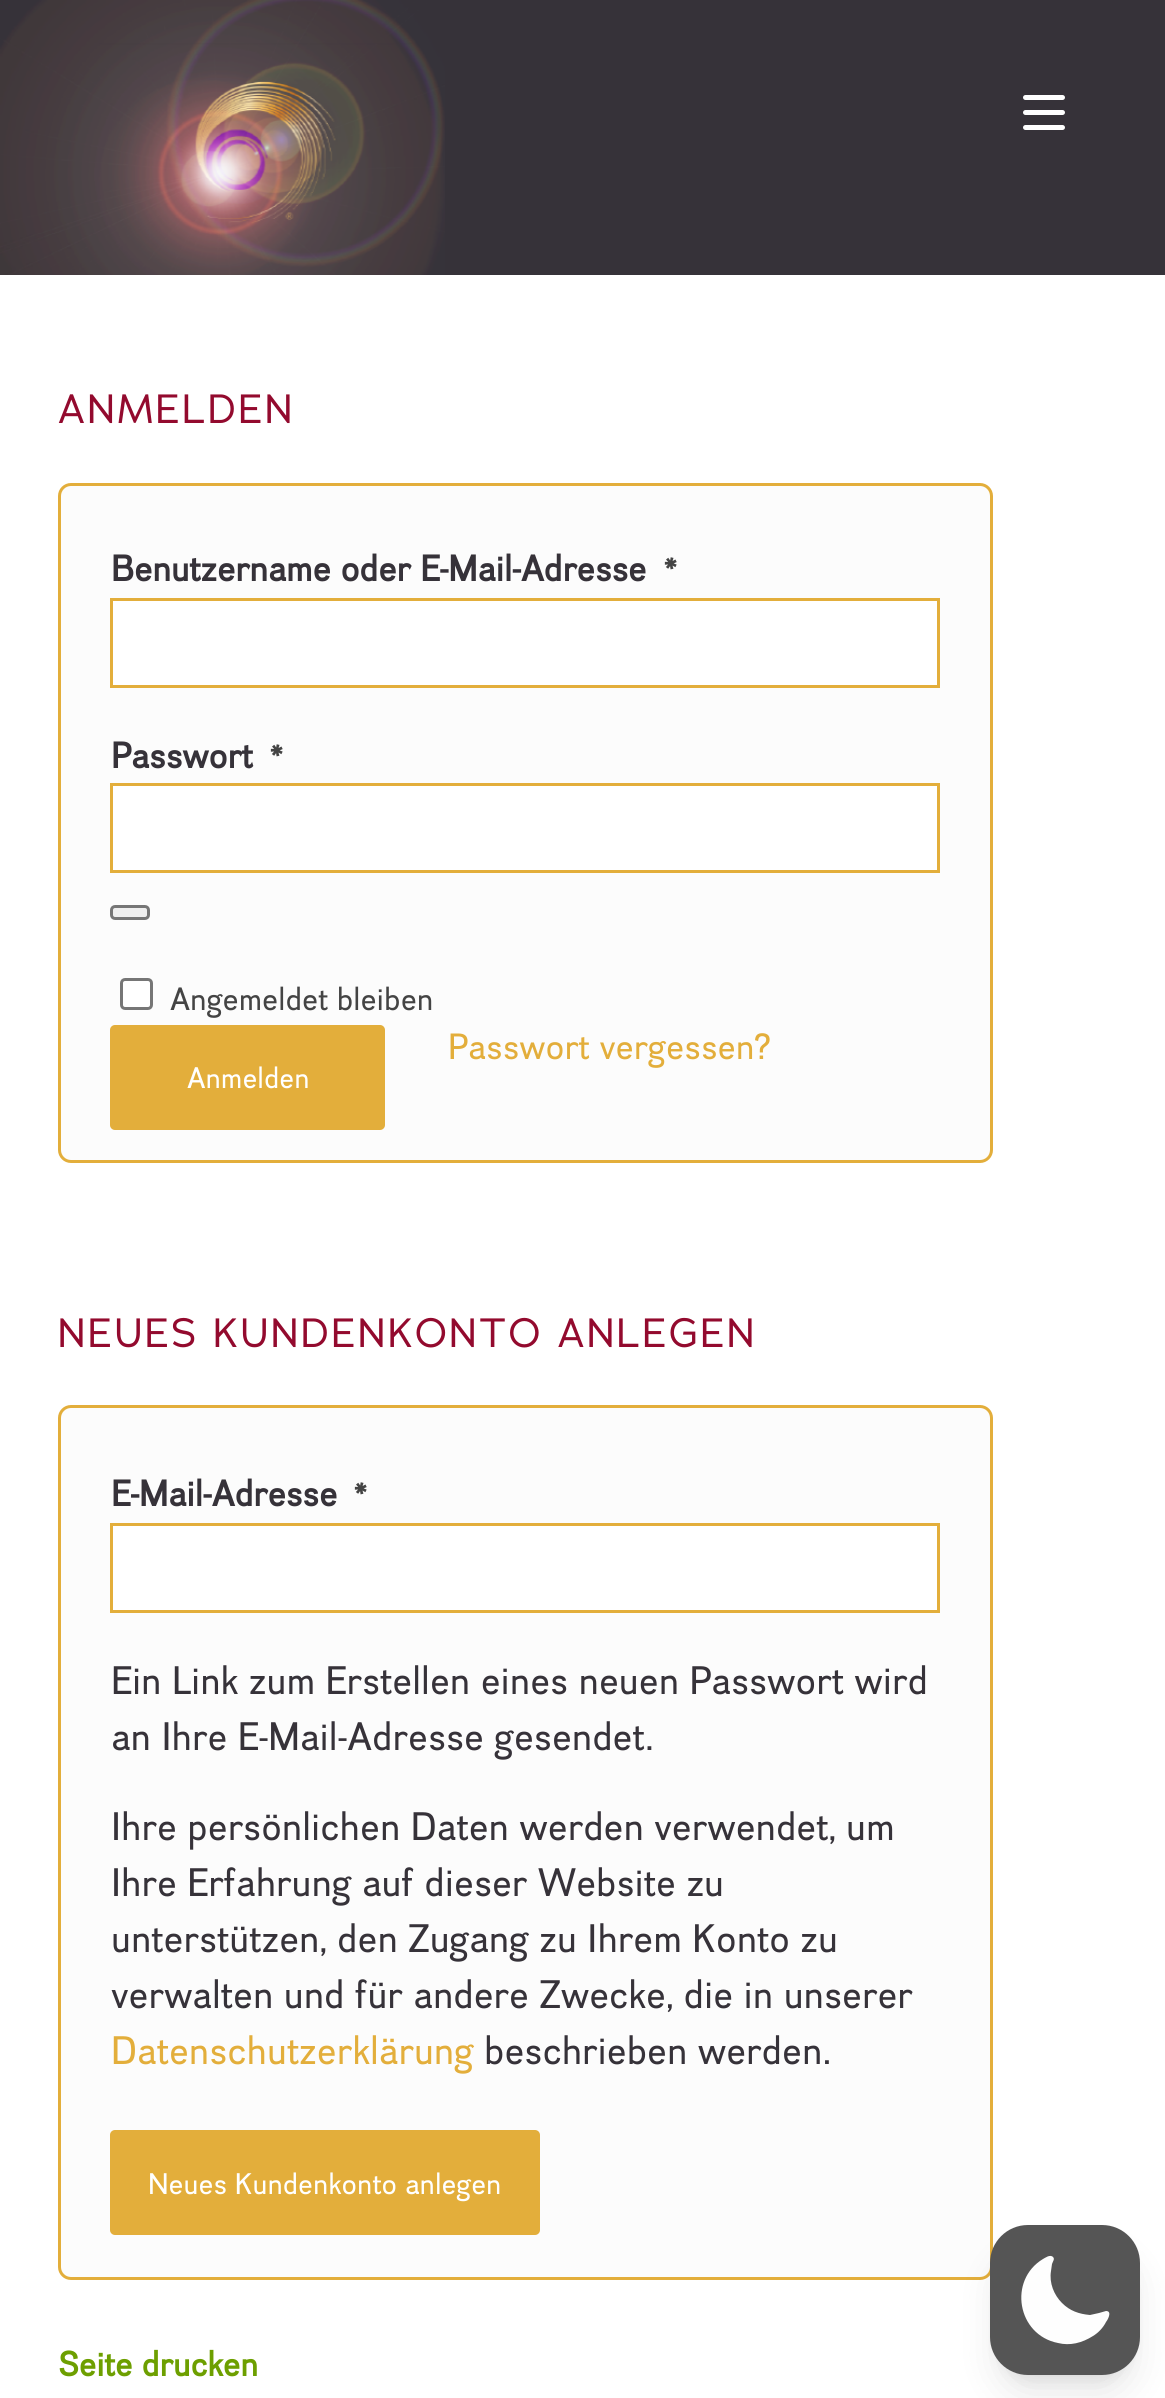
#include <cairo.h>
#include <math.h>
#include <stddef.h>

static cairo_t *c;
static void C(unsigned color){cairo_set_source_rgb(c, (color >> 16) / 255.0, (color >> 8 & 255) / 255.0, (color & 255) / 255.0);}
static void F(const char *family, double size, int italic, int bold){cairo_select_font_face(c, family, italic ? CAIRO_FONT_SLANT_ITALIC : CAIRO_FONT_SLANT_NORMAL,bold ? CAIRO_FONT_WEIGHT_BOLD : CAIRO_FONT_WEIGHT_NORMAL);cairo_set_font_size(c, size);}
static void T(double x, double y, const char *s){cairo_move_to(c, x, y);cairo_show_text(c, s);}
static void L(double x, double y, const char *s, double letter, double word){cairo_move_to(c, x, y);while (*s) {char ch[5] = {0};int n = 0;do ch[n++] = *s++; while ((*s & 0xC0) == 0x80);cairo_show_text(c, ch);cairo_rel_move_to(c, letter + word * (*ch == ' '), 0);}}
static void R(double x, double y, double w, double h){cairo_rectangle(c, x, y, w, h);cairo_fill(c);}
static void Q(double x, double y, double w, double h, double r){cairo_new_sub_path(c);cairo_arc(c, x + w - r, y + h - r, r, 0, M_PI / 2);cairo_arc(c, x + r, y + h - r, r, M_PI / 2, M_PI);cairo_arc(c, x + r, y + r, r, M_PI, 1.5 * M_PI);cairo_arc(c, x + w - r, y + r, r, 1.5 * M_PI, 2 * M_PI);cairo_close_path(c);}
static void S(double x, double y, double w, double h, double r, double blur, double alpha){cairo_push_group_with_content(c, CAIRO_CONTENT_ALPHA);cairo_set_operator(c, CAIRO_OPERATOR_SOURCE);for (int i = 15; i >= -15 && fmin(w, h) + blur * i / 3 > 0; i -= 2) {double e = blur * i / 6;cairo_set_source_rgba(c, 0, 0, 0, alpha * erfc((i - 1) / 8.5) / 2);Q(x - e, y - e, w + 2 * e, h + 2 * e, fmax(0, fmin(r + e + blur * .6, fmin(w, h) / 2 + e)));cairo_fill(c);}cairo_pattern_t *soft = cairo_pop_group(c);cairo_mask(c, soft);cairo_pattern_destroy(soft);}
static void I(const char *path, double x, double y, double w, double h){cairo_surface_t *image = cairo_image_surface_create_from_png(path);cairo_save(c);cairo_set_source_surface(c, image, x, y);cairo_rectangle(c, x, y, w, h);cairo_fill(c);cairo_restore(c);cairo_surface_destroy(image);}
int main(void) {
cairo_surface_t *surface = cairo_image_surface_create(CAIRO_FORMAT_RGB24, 1165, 2398);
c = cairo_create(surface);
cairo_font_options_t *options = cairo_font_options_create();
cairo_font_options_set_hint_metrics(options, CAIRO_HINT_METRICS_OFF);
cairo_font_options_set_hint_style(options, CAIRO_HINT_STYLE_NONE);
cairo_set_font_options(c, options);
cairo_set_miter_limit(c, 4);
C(0xffffff);
cairo_paint(c);
C(0x363239);
R(445,0,720,275);
I("1.png",0,0,445,275);
C(0xffffff);
Q(1023,110,42,5,2.5);
cairo_fill(c);
Q(1023,95,42,5,2.5);
cairo_fill(c);
Q(1023,125,42,5,2.5);
cairo_fill(c);
F("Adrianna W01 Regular",40,0,0);
C(0x930a2e);
L(58,423,"ANMELDEN",2.5,0);
C(0xfcfcfc);
Q(59.5,484.5,932,677,11.5);
cairo_fill_preserve(c);
C(0xe3ae3b);
cairo_set_line_width(c,3);
cairo_stroke(c);
F("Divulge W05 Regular",36.75,0,1);
C(0x363239);
T(111,581,"Benutzername oder E-Mail-Adresse");
F("Divulge W05 Regular",32.5,0,1);
C(0x444444);
T(664,581,"*");
C(0xffffff);
cairo_rectangle(c,111.5,599.5,827,87);
cairo_fill_preserve(c);
C(0xe3ae3b);
cairo_stroke(c);
F("Divulge W05 Regular",36.75,0,1);
C(0x363239);
T(111,768,"Passwort");
F("Divulge W05 Regular",32.5,0,1);
C(0x444444);
T(270,768,"*");
C(0xffffff);
cairo_rectangle(c,111.5,784.5,827,87);
cairo_fill_preserve(c);
C(0xe3ae3b);
cairo_stroke(c);
C(0xefefef);
Q(111.5,906.5,37,12,3.5);
cairo_fill_preserve(c);
C(0x767676);
cairo_stroke(c);
C(0xffffff);
Q(121.5,979.5,30,29,3.5);
cairo_fill_preserve(c);
C(0x767676);
cairo_stroke(c);
F("Divulge W05 Regular",32.5,0,0);
C(0x444444);
T(170,1010,"Angemeldet bleiben");
C(0xe3ae3b);
Q(110,1025,275,105,5);
cairo_fill(c);
F("Divulge W05 Regular",30,0,0);
C(0xffffff);
T(187,1088,"Anmelden");
F("Divulge W05 Regular",36.75,0,0);
C(0xe3ae3b);
T(448,1059,"Passwort vergessen?");
F("Adrianna W01 Regular",40,0,0);
C(0x930a2e);
L(58,1347,"NEUES KUNDENKONTO ANLEGEN",2.5,0);
C(0xfcfcfc);
Q(59.5,1406.5,932,872,11.5);
cairo_fill_preserve(c);
C(0xe3ae3b);
cairo_stroke(c);
F("Divulge W05 Regular",36.75,0,1);
C(0x363239);
T(111,1506,"E-Mail-Adresse");
F("Divulge W05 Regular",32.5,0,1);
C(0x444444);
T(354,1506,"*");
C(0xffffff);
cairo_rectangle(c,111.5,1524.5,827,87);
cairo_fill_preserve(c);
C(0xe3ae3b);
cairo_stroke(c);
F("Divulge W05 Regular",40,0,0);
C(0x363239);
T(111,1694,"Ein Link zum Erstellen eines neuen Passwort wird");
T(111,1750,"an Ihre E-Mail-Adresse gesendet.");
T(111,1840,"Ihre persönlichen Daten werden verwendet, um");
T(111,1896,"Ihre Erfahrung auf dieser Website zu");
T(111,1952,"unterstützen, den Zugang zu Ihrem Konto zu");
T(111,2008,"verwalten und für andere Zwecke, die in unserer");
C(0xe3ae3b);
T(111,2064,"Datenschutzerklärung");
C(0x363239);
T(484,2064,"beschrieben werden.");
C(0xe3ae3b);
Q(110,2130,430,105,5);
cairo_fill(c);
F("Divulge W05 Regular",30,0,0);
C(0xffffff);
T(148,2194,"Neues Kundenkonto anlegen");
F("Divulge W05 Regular",35,0,1);
C(0x6d9f00);
T(58,2376,"Seite drucken");
C(0x000000);
S(1000,2245,130,130,28,7.5,.1);
S(998,2258,135,135,30,19,.1);
C(0x555555);
Q(990,2225,150,150,38);
cairo_fill(c);
C(0xfefefe);
cairo_set_fill_rule(c,CAIRO_FILL_RULE_EVEN_ODD);
cairo_new_path(c);
cairo_move_to(c,1053,2257);
cairo_curve_to(c,1055,2259,1053,2261,1052,2264);
cairo_line_to(c,1051,2271);
cairo_curve_to(c,1049,2283,1054,2295,1062,2303);
cairo_curve_to(c,1070,2311,1079,2314,1090,2315);
cairo_line_to(c,1099,2313);
cairo_line_to(c,1106,2311);
cairo_curve_to(c,1113,2311,1107,2321,1106,2322);
cairo_curve_to(c,1103,2328,1098,2333,1093,2336);
cairo_curve_to(c,1082,2343,1070,2346,1058,2343);
cairo_curve_to(c,1017,2335,1008,2280,1043,2259);
cairo_curve_to(c,1045,2258,1050,2254,1053,2257);
cairo_close_path(c);
cairo_fill(c);
cairo_surface_write_to_png(surface, "o.png");
cairo_font_options_destroy(options);
cairo_destroy(c);
cairo_surface_destroy(surface);
return 0;
}
